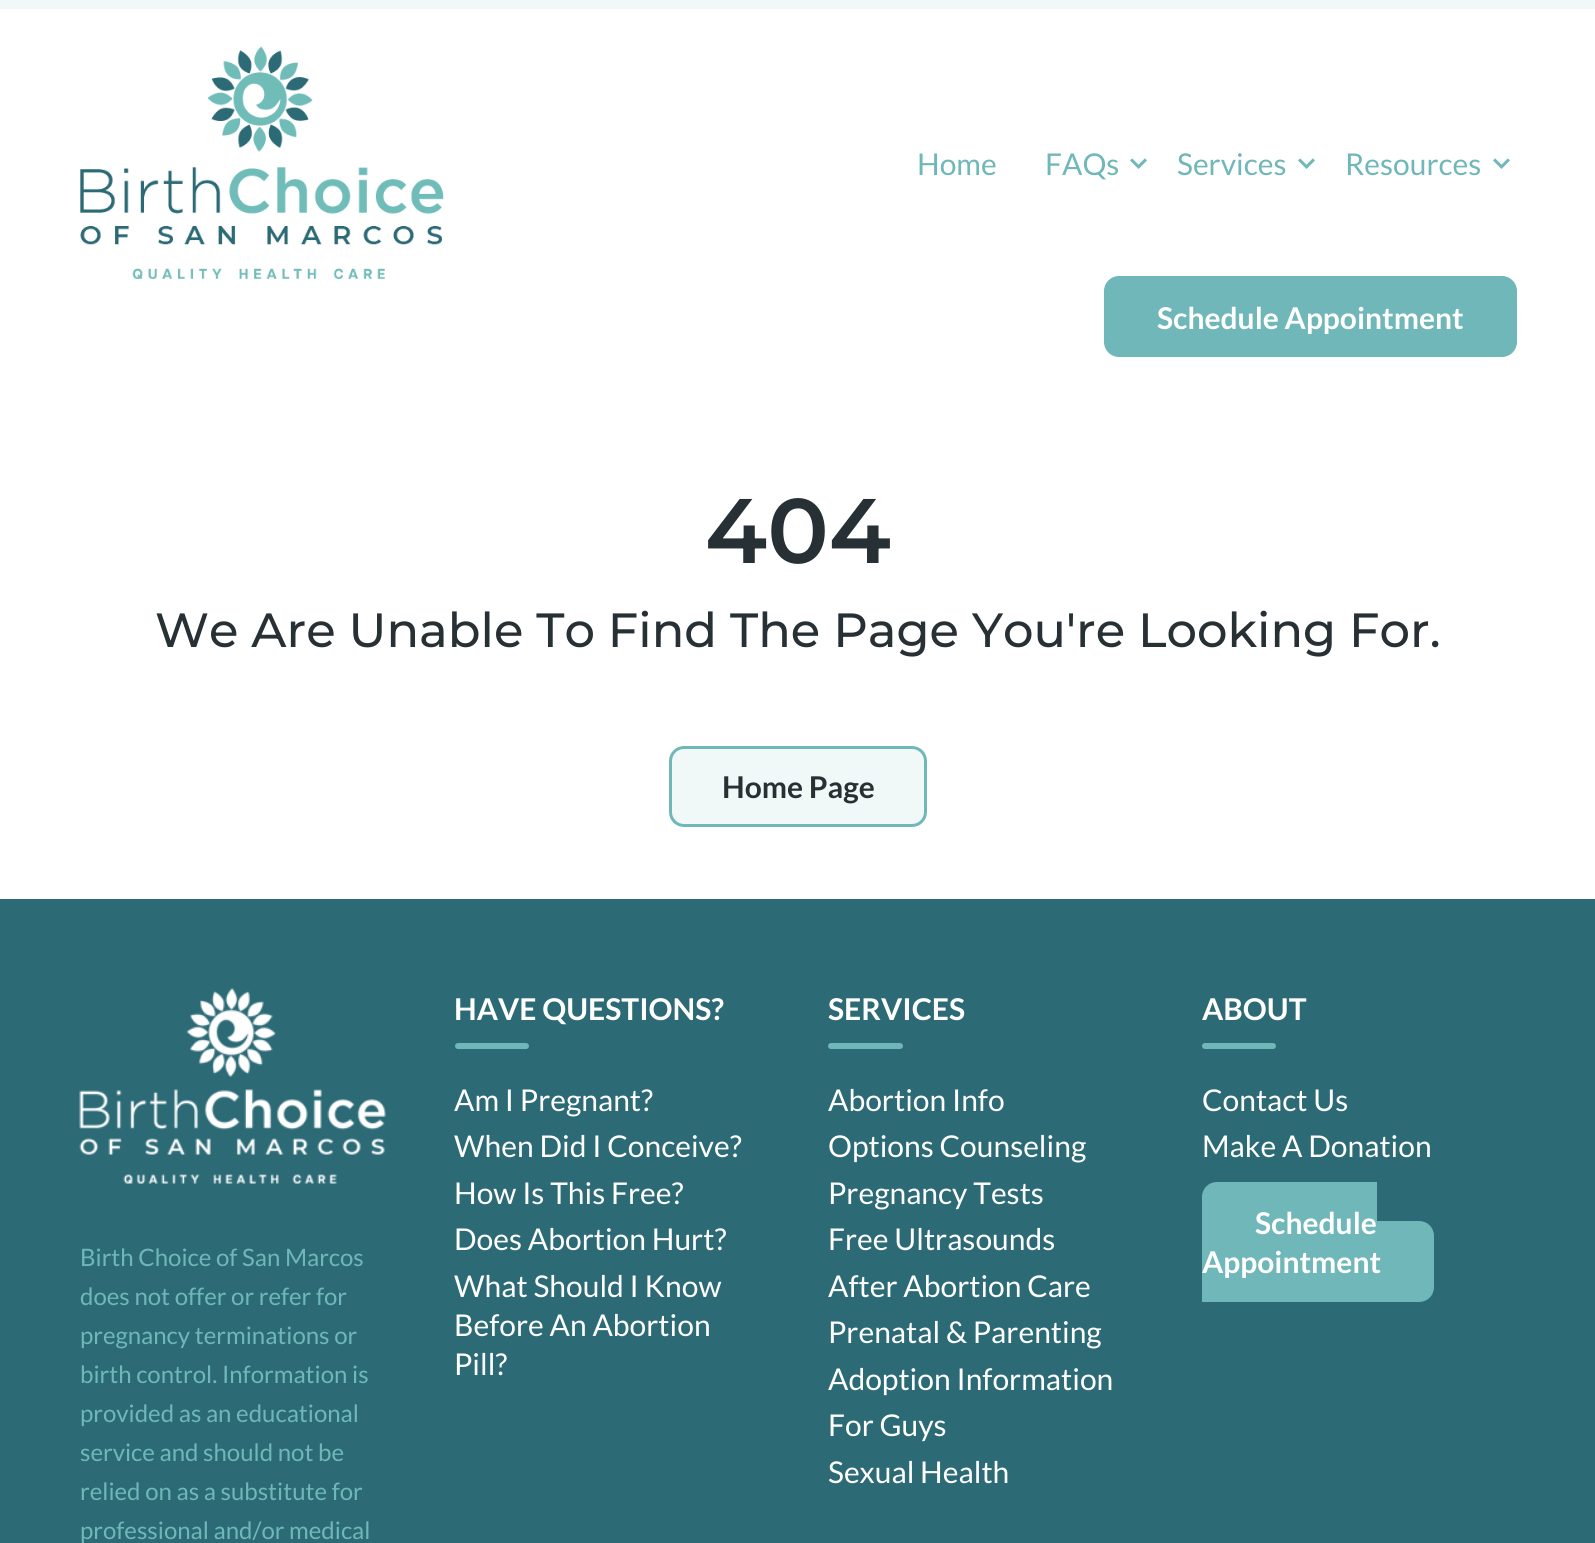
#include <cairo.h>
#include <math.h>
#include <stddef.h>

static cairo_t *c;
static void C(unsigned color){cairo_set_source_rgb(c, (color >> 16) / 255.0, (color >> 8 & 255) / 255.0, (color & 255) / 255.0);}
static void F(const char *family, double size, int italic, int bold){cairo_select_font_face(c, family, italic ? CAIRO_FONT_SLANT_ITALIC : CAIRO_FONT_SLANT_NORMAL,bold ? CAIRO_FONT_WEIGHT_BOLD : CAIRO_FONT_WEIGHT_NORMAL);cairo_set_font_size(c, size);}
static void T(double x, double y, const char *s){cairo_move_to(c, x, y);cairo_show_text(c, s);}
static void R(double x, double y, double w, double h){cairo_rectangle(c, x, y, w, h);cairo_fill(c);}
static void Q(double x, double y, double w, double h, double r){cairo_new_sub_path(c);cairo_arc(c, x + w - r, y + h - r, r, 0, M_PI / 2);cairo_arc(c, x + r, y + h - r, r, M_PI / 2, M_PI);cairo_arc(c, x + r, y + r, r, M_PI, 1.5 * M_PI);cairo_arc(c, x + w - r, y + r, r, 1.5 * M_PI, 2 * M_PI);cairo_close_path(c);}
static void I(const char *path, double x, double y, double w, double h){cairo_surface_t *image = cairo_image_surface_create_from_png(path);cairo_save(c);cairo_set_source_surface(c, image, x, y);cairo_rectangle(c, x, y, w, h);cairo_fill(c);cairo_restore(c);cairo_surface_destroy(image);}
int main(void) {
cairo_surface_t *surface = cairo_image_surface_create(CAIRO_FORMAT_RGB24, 1595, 1543);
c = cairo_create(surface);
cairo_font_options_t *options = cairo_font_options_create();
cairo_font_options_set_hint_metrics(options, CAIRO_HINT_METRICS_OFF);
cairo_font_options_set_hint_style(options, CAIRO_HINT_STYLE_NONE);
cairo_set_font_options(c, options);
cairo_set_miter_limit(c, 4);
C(0xffffff);
cairo_paint(c);
C(0xf1f8f8);
R(0,0,1595,9);
I("1.png",80,46,364,233);
F("Lato",30,0,0);
C(0x6fb7b8);
T(917,175,"Home");
T(1045,175,"FAQs");
I("2.png",1130,158,17,11);
T(1177,175,"Services");
I("2.png",1298,158,17,11);
T(1345,175,"Resources");
I("2.png",1493,158,17,11);
Q(1104,276,413,81,15);
cairo_fill(c);
F("Lato",30,0,1);
C(0xffffff);
T(1157,329,"Schedule Appointment");
F("Montserrat SemiBold",91.5,0,0);
C(0x273034);
T(705,563,"404");
F("Montserrat Medium",48,0,0);
T(155,647,"We Are Unable To Find The Page You're Looking For.");
C(0xf1f8f8);
Q(670.5,747.5,255,78,13.5);
cairo_fill_preserve(c);
C(0x6fb7b8);
cairo_set_line_width(c,3);
cairo_stroke(c);
F("Lato",30,0,1);
C(0x273034);
T(722,798,"Home Page");
C(0x2c6b76);
R(0,899,1595,644);
C(0xffffff);
T(454,1020,"HAVE QUESTIONS?");
C(0x6fb7b8);
Q(455,1043,74,6,3);
cairo_fill(c);
F("Lato",30,0,0);
C(0xffffff);
T(454,1111,"Am I Pregnant?");
T(454,1157,"When Did I Conceive?");
T(454,1204,"How Is This Free?");
T(454,1250,"Does Abortion Hurt?");
T(454,1297,"What Should I Know");
T(454,1336,"Before An Abortion");
T(454,1375,"Pill?");
F("Lato",30,0,1);
T(828,1020,"SERVICES");
C(0x6fb7b8);
Q(828,1043,75,6,3);
cairo_fill(c);
F("Lato",30,0,0);
C(0xffffff);
T(828,1111,"Abortion Info");
T(828,1157,"Options Counseling");
T(828,1204,"Pregnancy Tests");
T(828,1250,"Free Ultrasounds");
T(828,1297,"After Abortion Care");
T(828,1343,"Prenatal & Parenting");
T(828,1390,"Adoption Information");
T(828,1436,"For Guys");
T(828,1483,"Sexual Health");
F("Lato",30,0,1);
T(1202,1020,"ABOUT");
C(0x6fb7b8);
Q(1202,1043,74,6,3);
cairo_fill(c);
F("Lato",30,0,0);
C(0xffffff);
T(1202,1111,"Contact Us");
T(1202,1157,"Make A Donation");
C(0x6fb7b8);
cairo_new_path(c);
cairo_move_to(c,1217,1182);
cairo_line_to(c,1377,1182);
cairo_line_to(c,1377,1263);
cairo_line_to(c,1217,1263);
cairo_curve_to(c,1208.5,1263,1202,1256.5,1202,1248);
cairo_line_to(c,1202,1197);
cairo_curve_to(c,1202,1188.5,1208.5,1182,1217,1182);
cairo_close_path(c);
cairo_fill(c);
cairo_new_path(c);
cairo_move_to(c,1202,1221);
cairo_line_to(c,1419,1221);
cairo_curve_to(c,1427.5,1221,1434,1227.5,1434,1236);
cairo_line_to(c,1434,1287);
cairo_curve_to(c,1434,1295.5,1427.5,1302,1419,1302);
cairo_line_to(c,1202,1302);
cairo_close_path(c);
cairo_fill(c);
F("Lato",30,0,1);
C(0xffffff);
T(1255,1234,"Schedule");
T(1202,1273,"Appointment");
I("3.png",79,988,307,196);
F("Lato",24,0,0);
C(0x6fb7b8);
T(80,1266,"Birth Choice of San Marcos");
T(80,1305,"does not offer or refer for");
T(80,1344,"pregnancy terminations or");
T(80,1383,"birth control. Information is");
T(80,1422,"provided as an educational");
T(80,1461,"service and should not be");
T(80,1500,"relied on as a substitute for");
T(80,1539,"professional and/or medical");
cairo_surface_write_to_png(surface, "o.png");
cairo_font_options_destroy(options);
cairo_destroy(c);
cairo_surface_destroy(surface);
return 0;
}
